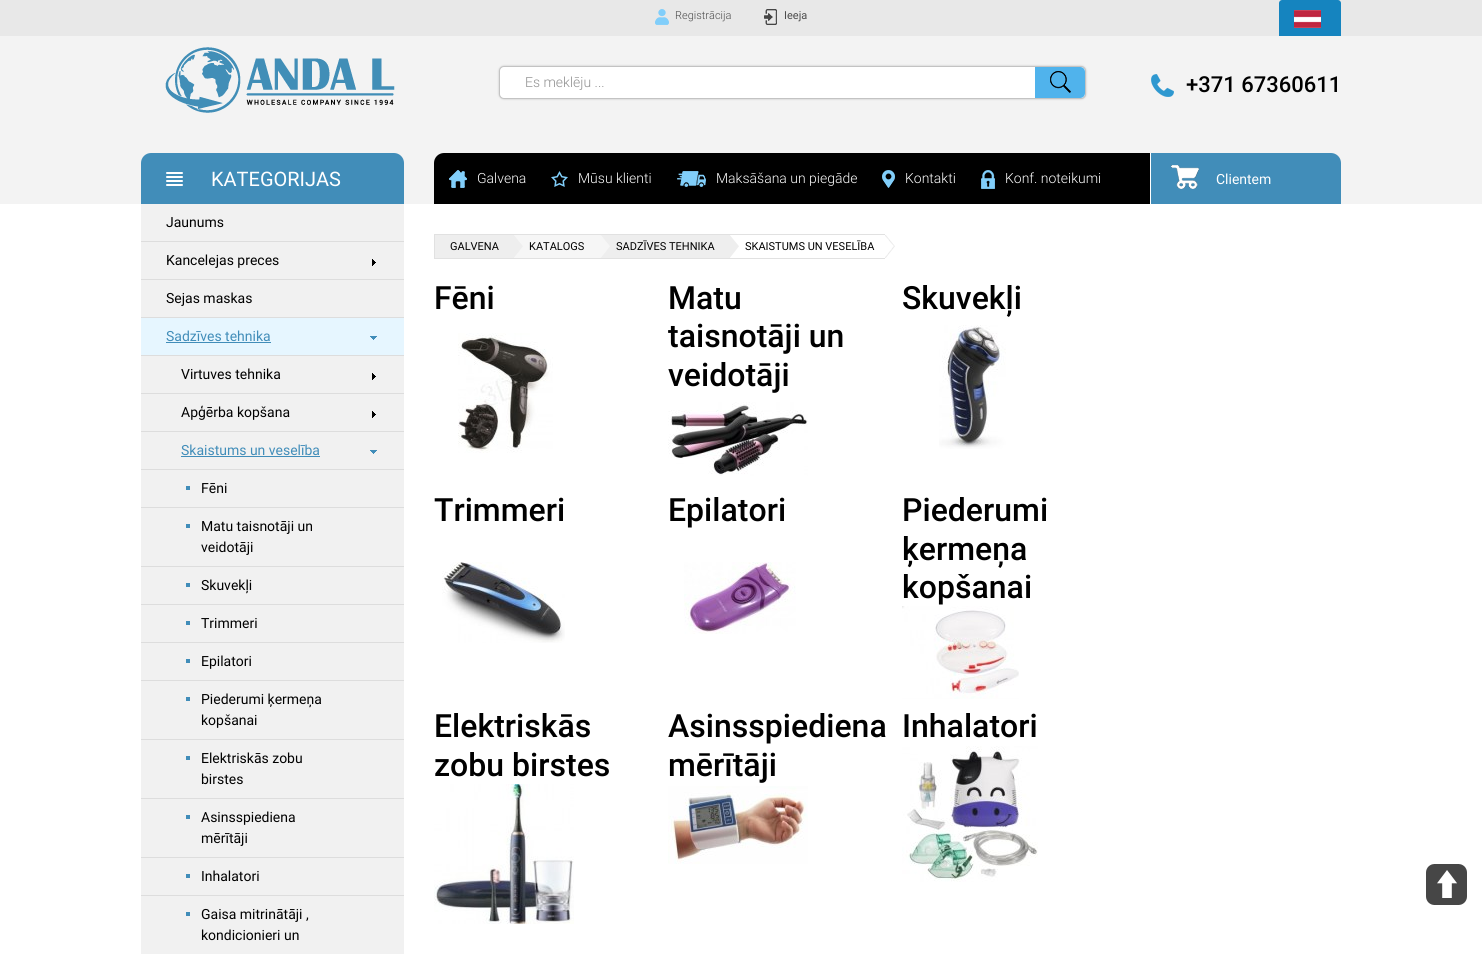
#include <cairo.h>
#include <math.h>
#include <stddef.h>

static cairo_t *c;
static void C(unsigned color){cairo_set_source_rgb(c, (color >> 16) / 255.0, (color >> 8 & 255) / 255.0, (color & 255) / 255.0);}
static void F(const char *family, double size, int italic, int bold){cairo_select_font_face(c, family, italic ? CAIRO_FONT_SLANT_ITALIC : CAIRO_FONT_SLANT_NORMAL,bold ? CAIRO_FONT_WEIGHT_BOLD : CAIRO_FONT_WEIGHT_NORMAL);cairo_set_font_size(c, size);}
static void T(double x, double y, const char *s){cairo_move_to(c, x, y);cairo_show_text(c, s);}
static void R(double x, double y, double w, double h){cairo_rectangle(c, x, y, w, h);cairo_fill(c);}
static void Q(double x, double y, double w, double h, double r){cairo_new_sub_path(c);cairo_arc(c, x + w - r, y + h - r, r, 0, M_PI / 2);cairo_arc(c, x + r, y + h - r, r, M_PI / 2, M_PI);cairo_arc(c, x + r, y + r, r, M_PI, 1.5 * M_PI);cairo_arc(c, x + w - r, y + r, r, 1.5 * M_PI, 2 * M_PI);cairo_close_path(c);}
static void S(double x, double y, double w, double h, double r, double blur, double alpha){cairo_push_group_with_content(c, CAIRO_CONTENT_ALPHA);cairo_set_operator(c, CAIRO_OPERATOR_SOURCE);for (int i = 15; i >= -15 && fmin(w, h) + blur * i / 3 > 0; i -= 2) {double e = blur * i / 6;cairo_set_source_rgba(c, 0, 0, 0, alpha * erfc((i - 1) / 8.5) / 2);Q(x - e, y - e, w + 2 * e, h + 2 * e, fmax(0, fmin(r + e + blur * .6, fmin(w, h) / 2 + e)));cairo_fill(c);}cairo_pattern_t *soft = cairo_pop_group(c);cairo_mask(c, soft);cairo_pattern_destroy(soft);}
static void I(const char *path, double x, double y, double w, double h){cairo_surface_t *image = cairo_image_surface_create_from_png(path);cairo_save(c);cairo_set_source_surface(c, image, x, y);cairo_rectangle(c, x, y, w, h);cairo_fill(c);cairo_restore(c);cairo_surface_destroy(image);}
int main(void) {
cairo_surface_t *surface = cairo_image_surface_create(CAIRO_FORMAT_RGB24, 1482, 954);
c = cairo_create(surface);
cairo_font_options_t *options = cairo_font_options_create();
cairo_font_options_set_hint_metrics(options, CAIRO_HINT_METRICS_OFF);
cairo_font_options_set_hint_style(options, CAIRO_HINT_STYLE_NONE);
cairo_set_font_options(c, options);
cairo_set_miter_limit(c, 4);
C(0xffffff);
cairo_paint(c);
C(0xe8e8e8);
R(0,0,1482,36);
I("1.png",655,9,14,16);
F("Roboto Light",11,0,0);
C(0x4c4c4c);
T(675,19,"Registrācija");
I("2.png",764,9,13,16);
F("Roboto",11,0,0);
T(784,19,"Ieeja");
C(0x1584bf);
cairo_new_path(c);
cairo_move_to(c,1282,0);
cairo_line_to(c,1338,0);
cairo_curve_to(c,1339.5,0,1341,1.5,1341,3);
cairo_line_to(c,1341,36);
cairo_line_to(c,1279,36);
cairo_line_to(c,1279,3);
cairo_curve_to(c,1279,1.5,1280.5,0,1282,0);
cairo_close_path(c);
cairo_fill(c);
I("3.png",1294,10,27,18);
C(0xf3f3f3);
R(0,36,1482,168);
I("4.png",165,47,230,66);
C(0xc3c3c3);
S(499,66,587,33,5,1,1);
C(0xffffff);
Q(499.5,66.5,586,32,4.5);
cairo_fill_preserve(c);
C(0xc3c3c3);
cairo_set_line_width(c,1);
cairo_stroke(c);
F("Roboto Light",14,0,0);
C(0x909090);
T(525,87,"Es meklēju ...");
C(0x50b3ec);
cairo_new_path(c);
cairo_move_to(c,1035,67);
cairo_line_to(c,1080,67);
cairo_curve_to(c,1083,67,1085,69,1085,72);
cairo_line_to(c,1085,93);
cairo_curve_to(c,1085,96,1083,98,1080,98);
cairo_line_to(c,1035,98);
cairo_close_path(c);
cairo_fill(c);
I("5.png",1050,71,21,22);
I("6.png",1151,74,23,23);
F("Roboto Medium",22,0,0);
C(0x000000);
T(1186,92,"+371 67360611");
C(0x418db9);
cairo_new_path(c);
cairo_move_to(c,151,153);
cairo_line_to(c,394,153);
cairo_curve_to(c,399.5,153,404,157.5,404,163);
cairo_line_to(c,404,204);
cairo_line_to(c,141,204);
cairo_line_to(c,141,163);
cairo_curve_to(c,141,157.5,145.5,153,151,153);
cairo_close_path(c);
cairo_fill(c);
I("7.png",166,172,17,14);
F("Roboto",20,0,0);
C(0xffffff);
T(211,186,"KATEGORIJAS");
C(0x000000);
cairo_new_path(c);
cairo_move_to(c,444,153);
cairo_line_to(c,1151,153);
cairo_line_to(c,1151,204);
cairo_line_to(c,434,204);
cairo_line_to(c,434,163);
cairo_curve_to(c,434,157.5,438.5,153,444,153);
cairo_close_path(c);
cairo_fill(c);
C(0xffffff);
R(1150,153,1,51);
I("8.png",449,170,18,18);
F("Roboto Light",14,0,0);
T(477,183,"Galvena");
I("9.png",551,171,17,16);
T(578,183,"Mūsu klienti");
I("10.png",677,171,29,16);
T(716,183,"Maksāšana un piegāde");
I("11.png",882,170,13,18);
T(905,183,"Kontakti");
I("12.png",981,170,14,19);
T(1005,183,"Konf. noteikumi");
C(0x418db9);
cairo_new_path(c);
cairo_move_to(c,1151,153);
cairo_line_to(c,1331,153);
cairo_curve_to(c,1336.5,153,1341,157.5,1341,163);
cairo_line_to(c,1341,204);
cairo_line_to(c,1151,204);
cairo_close_path(c);
cairo_fill(c);
I("13.png",1171,165,28,24);
F("Roboto",14,0,0);
C(0xffffff);
T(1216,184,"Clientem");
C(0xf1f1f1);
R(141,204,263,37);
C(0xdddddd);
R(141,241,263,1);
C(0x000000);
T(166,227,"Jaunums");
C(0xf1f1f1);
R(141,242,263,37);
C(0xdddddd);
R(141,279,263,1);
C(0x000000);
T(166,265,"Kancelejas preces");
I("14.png",372,259,4,7);
C(0xf1f1f1);
R(141,280,263,37);
C(0xdddddd);
R(141,317,263,1);
C(0x000000);
T(166,303,"Sejas maskas");
C(0xe6f6ff);
R(141,318,263,37);
C(0xdddddd);
R(141,355,263,1);
C(0x418db9);
T(166,341,"Sadzīves tehnika");
R(166,342,105,1);
I("15.png",370,336,7,4);
C(0xf1f1f1);
R(141,356,263,37);
C(0xdddddd);
R(141,393,263,1);
C(0x000000);
T(181,379,"Virtuves tehnika");
I("14.png",372,373,4,7);
C(0xf1f1f1);
R(141,394,263,37);
C(0xdddddd);
R(141,431,263,1);
C(0x000000);
T(181,417,"Apģērba kopšana");
I("14.png",372,411,4,7);
C(0xf1f1f1);
R(141,432,263,37);
C(0xdddddd);
R(141,469,263,1);
C(0x418db9);
T(181,455,"Skaistums un veselība");
R(181,456,139,1);
I("16.png",370,450,7,4);
C(0xf1f1f1);
R(141,470,263,37);
C(0xdddddd);
R(141,507,263,1);
C(0x418db9);
R(186,486,4,4);
C(0x000000);
T(201,493,"Fēni");
C(0xf1f1f1);
R(141,508,263,58);
C(0xdddddd);
R(141,566,263,1);
C(0x418db9);
R(186,524,4,4);
C(0x000000);
T(201,531,"Matu taisnotāji un");
T(201,552,"veidotāji");
C(0xf1f1f1);
R(141,567,263,37);
C(0xdddddd);
R(141,604,263,1);
C(0x418db9);
R(186,583,4,4);
C(0x000000);
T(201,590,"Skuvekļi");
C(0xf1f1f1);
R(141,605,263,37);
C(0xdddddd);
R(141,642,263,1);
C(0x418db9);
R(186,621,4,4);
C(0x000000);
T(201,628,"Trimmeri");
C(0xf1f1f1);
R(141,643,263,37);
C(0xdddddd);
R(141,680,263,1);
C(0x418db9);
R(186,659,4,4);
C(0x000000);
T(201,666,"Epilatori");
C(0xf1f1f1);
R(141,681,263,58);
C(0xdddddd);
R(141,739,263,1);
C(0x418db9);
R(186,697,4,4);
C(0x000000);
T(201,704,"Piederumi ķermeņa");
T(201,725,"kopšanai");
C(0xf1f1f1);
R(141,740,263,58);
C(0xdddddd);
R(141,798,263,1);
C(0x418db9);
R(186,756,4,4);
C(0x000000);
T(201,763,"Elektriskās zobu");
T(201,784,"birstes");
C(0xf1f1f1);
R(141,799,263,58);
C(0xdddddd);
R(141,857,263,1);
C(0x418db9);
R(186,815,4,4);
C(0x000000);
T(201,822,"Asinsspiediena");
T(201,843,"mērītāji");
C(0xf1f1f1);
R(141,858,263,37);
C(0xdddddd);
R(141,895,263,1);
C(0x418db9);
R(186,874,4,4);
C(0x000000);
T(201,881,"Inhalatori");
C(0xf1f1f1);
R(141,896,263,58);
C(0x418db9);
R(186,912,4,4);
C(0x000000);
T(201,919,"Gaisa mitrinātāji ,");
T(201,940,"kondicionieri un");
C(0xe1e1e1);
R(434,234,451,1);
R(434,258,451,1);
R(434,234,1,25);
C(0xeeeeee);
R(435,235,78,23);
F("Roboto",11,0,0);
C(0x000000);
T(450,250,"GALVENA");
C(0xe1e1e1);
R(513,234,1,25);
C(0xf6f6f6);
R(514,235,86,23);
I("17.png",513,235,10,23);
C(0x000000);
T(529,250,"KATALOGS");
C(0xe1e1e1);
R(600,234,1,25);
C(0xeeeeee);
R(601,235,128,23);
I("18.png",600,235,10,23);
C(0x000000);
T(616,250,"SADZĪVES TEHNIKA");
C(0xe1e1e1);
R(729,234,1,25);
I("19.png",729,235,10,23);
C(0x000000);
T(745,250,"SKAISTUMS UN VESELĪBA");
I("20.png",885,235,10,23);
F("Roboto Medium",32,0,0);
T(434,309,"Fēni");
I("21.png",458,333,95,120);
T(668,309,"Matu");
T(668,347,"taisnotāji un");
T(668,386,"veidotāji");
I("22.png",668,402,140,74);
T(902,309,"Skuvekļi");
I("23.png",939,325,67,124);
T(434,521,"Trimmeri");
I("24.png",442,562,123,81);
T(668,521,"Epilatori");
I("25.png",684,562,112,72);
T(902,521,"Piederumi");
T(902,560,"ķermeņa");
T(902,598,"kopšanai");
I("26.png",902,606,117,93);
T(434,737,"Elektriskās");
T(434,776,"zobu birstes");
I("27.png",434,784,140,140);
T(668,737,"Asinsspiediena");
T(668,776,"mērītāji");
I("28.png",668,786,140,78);
T(902,737,"Inhalatori");
I("29.png",902,746,136,136);
I("30.png",1426,864,41,41);
cairo_surface_write_to_png(surface, "o.png");
cairo_font_options_destroy(options);
cairo_destroy(c);
cairo_surface_destroy(surface);
return 0;
}
